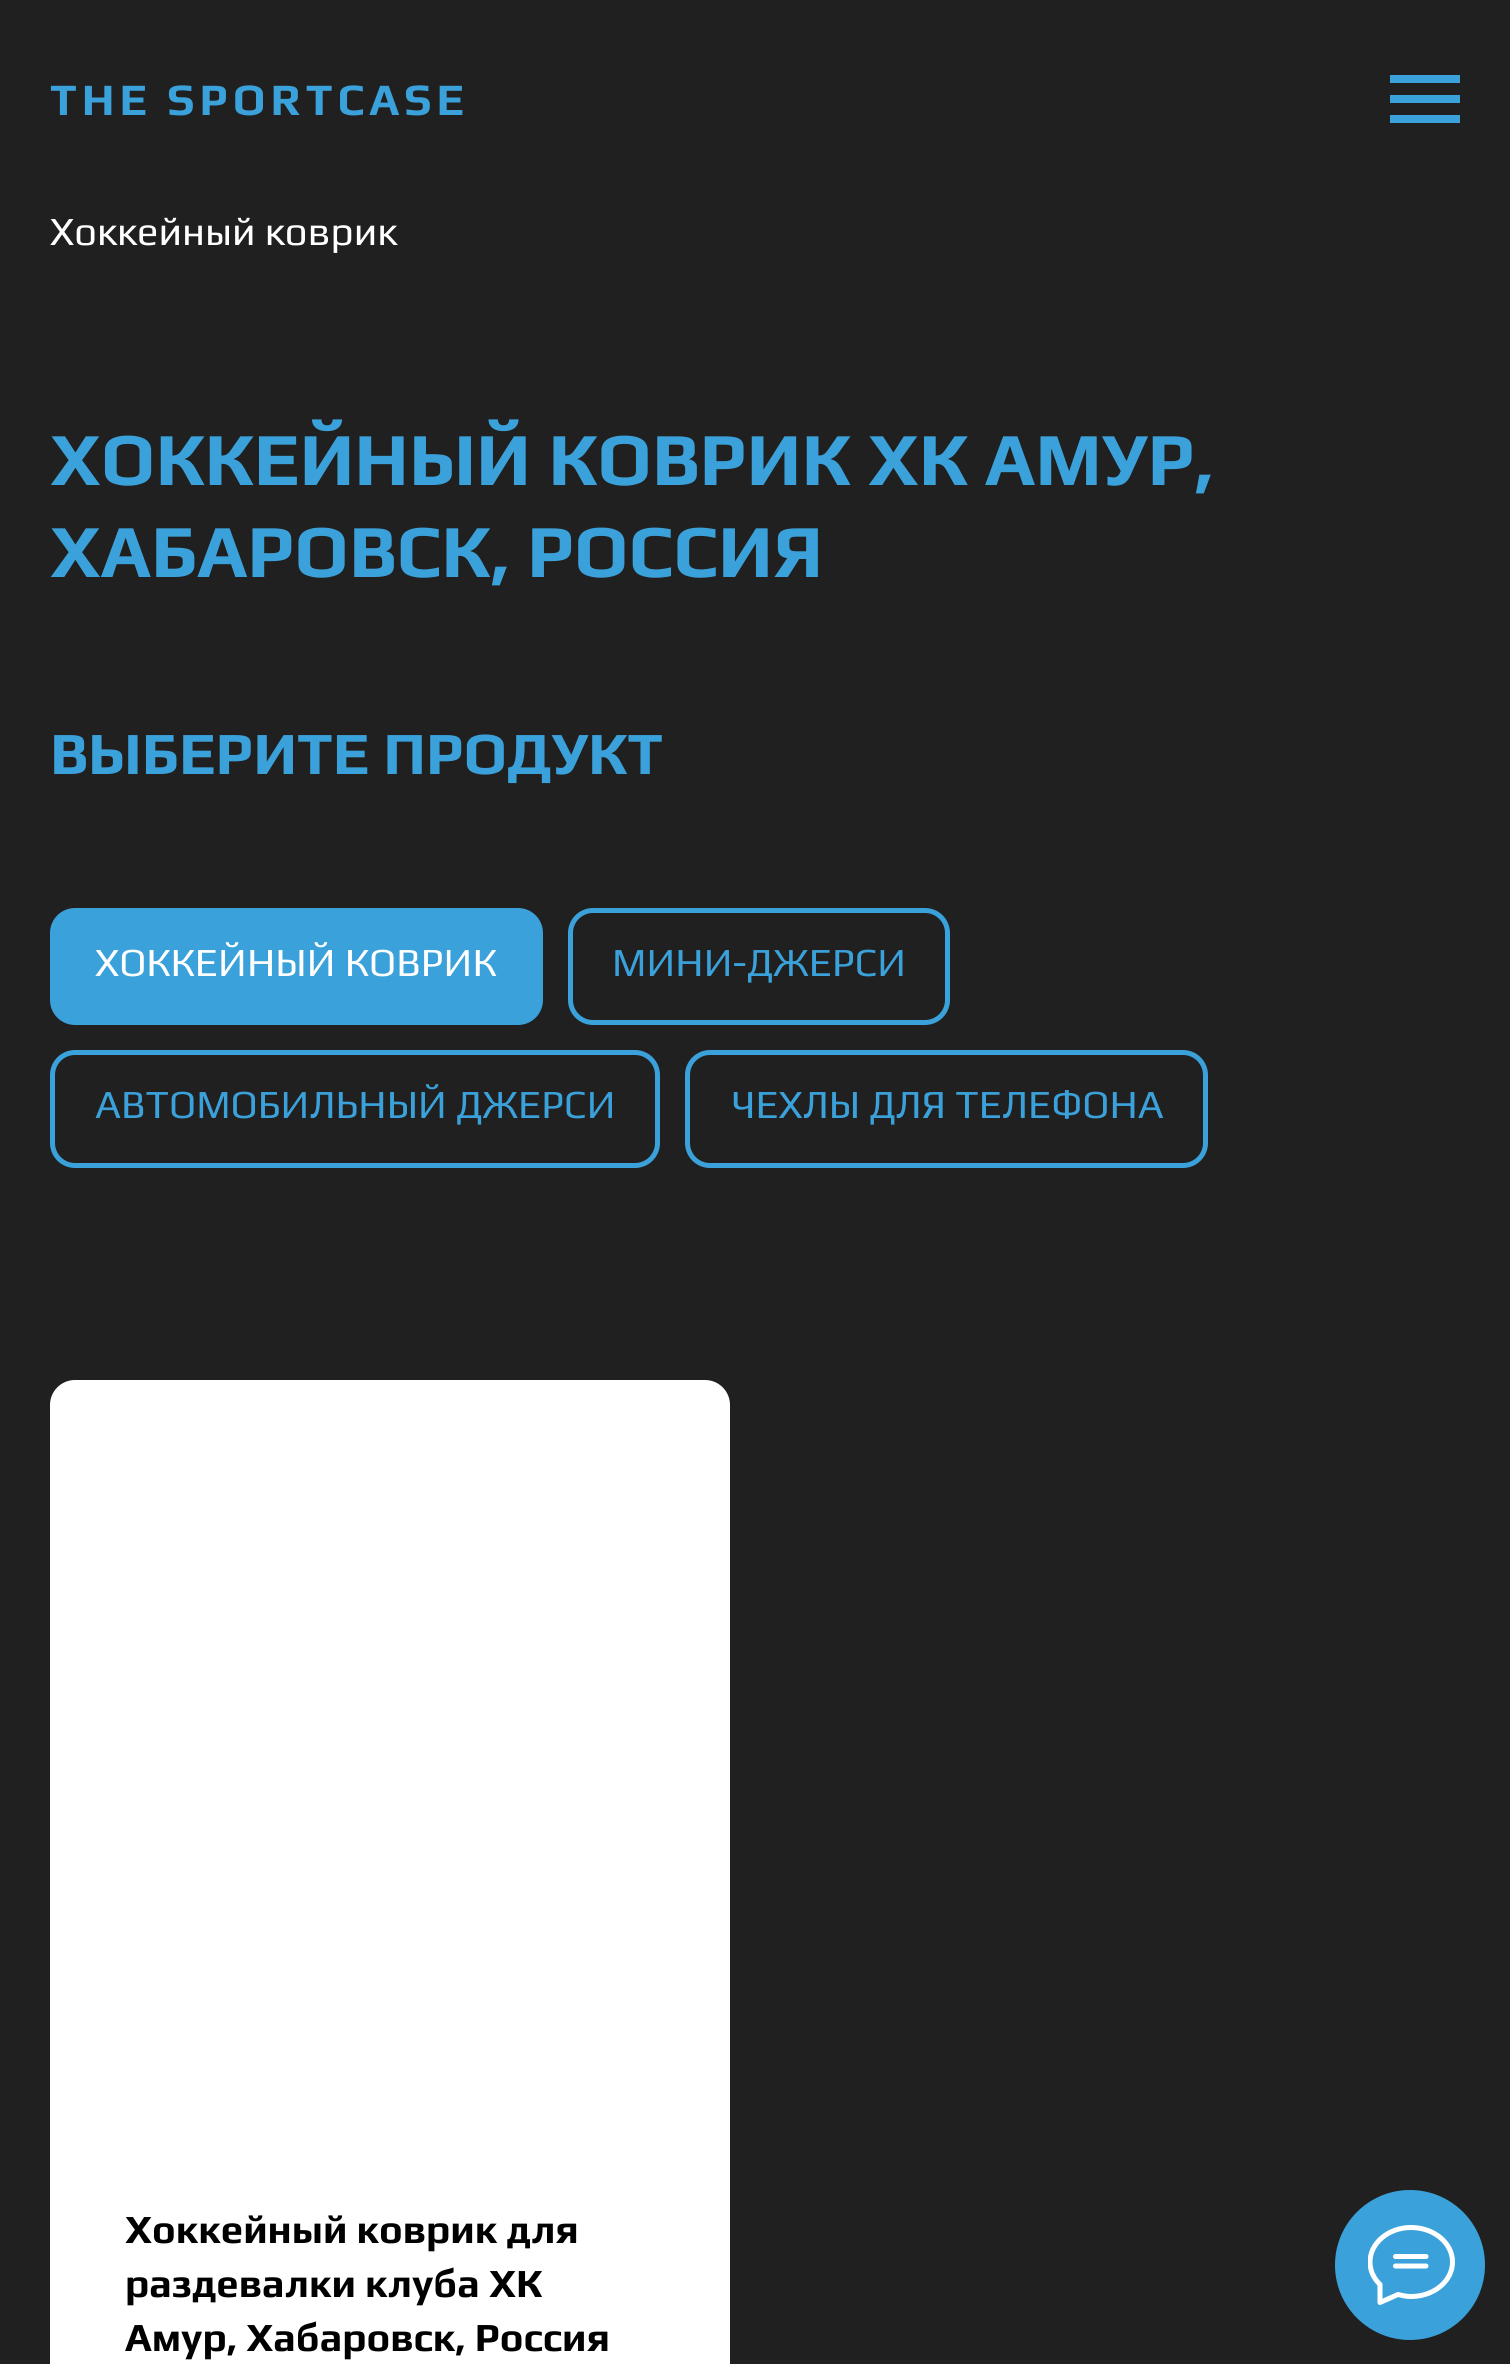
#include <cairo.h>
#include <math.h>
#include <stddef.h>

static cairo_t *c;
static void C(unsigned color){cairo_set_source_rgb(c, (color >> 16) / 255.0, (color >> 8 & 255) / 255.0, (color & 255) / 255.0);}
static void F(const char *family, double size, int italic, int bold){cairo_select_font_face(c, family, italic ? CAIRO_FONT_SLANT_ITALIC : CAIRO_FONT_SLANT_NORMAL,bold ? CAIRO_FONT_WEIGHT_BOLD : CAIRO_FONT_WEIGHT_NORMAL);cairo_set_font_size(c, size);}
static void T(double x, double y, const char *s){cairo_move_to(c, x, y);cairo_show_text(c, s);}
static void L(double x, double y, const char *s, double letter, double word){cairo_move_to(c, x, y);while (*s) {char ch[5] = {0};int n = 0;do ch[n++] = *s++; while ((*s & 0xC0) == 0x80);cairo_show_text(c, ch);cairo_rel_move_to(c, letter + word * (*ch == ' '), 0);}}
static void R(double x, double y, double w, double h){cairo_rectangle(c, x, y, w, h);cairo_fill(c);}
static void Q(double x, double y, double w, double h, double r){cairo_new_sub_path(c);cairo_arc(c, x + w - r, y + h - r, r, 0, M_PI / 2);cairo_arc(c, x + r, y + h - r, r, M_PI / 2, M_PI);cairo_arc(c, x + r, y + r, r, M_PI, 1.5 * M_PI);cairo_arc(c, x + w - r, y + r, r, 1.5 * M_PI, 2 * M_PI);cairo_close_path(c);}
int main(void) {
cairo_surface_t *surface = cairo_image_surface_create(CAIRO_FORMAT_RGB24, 1510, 2364);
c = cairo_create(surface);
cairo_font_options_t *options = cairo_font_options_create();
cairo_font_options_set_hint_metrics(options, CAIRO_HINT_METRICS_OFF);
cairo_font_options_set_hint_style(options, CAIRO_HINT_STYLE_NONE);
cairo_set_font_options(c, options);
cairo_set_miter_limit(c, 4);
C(0x202020);
cairo_paint(c);
F("Play",45,0,1);
C(0x3ba1da);
L(50,115,"THE SPORTCASE",5,0);
R(1390,75,70,8);
R(1390,95,70,8);
R(1390,115,70,8);
cairo_new_path(c);
cairo_arc(c,1410,2265,75,0,2 * M_PI);
cairo_fill(c);
cairo_save(c);
cairo_rectangle(c,1368,2225,87,80);
cairo_clip(c);
cairo_new_path(c);
cairo_move_to(c,1395.5,2256.5);
cairo_line_to(c,1426,2256.5);
cairo_move_to(c,1395.5,2266);
cairo_line_to(c,1426,2266);
cairo_move_to(c,1379.5,2284);
cairo_curve_to(c,1373.5,2278,1370,2270.5,1370,2262);
cairo_curve_to(c,1370,2243,1388.5,2227.5,1411,2227.5);
cairo_curve_to(c,1434,2227.5,1452.5,2243,1452.5,2262);
cairo_curve_to(c,1452.5,2281,1434,2296.5,1411,2296.5);
cairo_curve_to(c,1406.5,2296.5,1402,2295.5,1398,2294.5);
cairo_line_to(c,1380,2302.5);
cairo_line_to(c,1380,2284.5);
cairo_close_path(c);
C(0xffffff);
cairo_set_line_width(c,5);
cairo_set_line_cap(c,CAIRO_LINE_CAP_ROUND);
cairo_set_line_join(c,CAIRO_LINE_JOIN_ROUND);
cairo_stroke(c);
cairo_restore(c);
F("Play",40,0,0);
C(0xffffff);
T(50,245,"Хоккейный коврик");
F("Play",75,0,1);
C(0x3ba1da);
T(50,485,"ХОККЕЙНЫЙ КОВРИК ХК АМУР,");
T(50,577,"ХАБАРОВСК, РОССИЯ");
F("Play",60,0,1);
T(50,774,"ВЫБЕРИТЕ ПРОДУКТ");
Q(50,908,493,117,25);
cairo_fill(c);
F("Play",40,0,0);
C(0xffffff);
T(95,976,"ХОККЕЙНЫЙ КОВРИК");
Q(570.5,910.5,377,112,22.5);
C(0x3ba1da);
cairo_set_line_width(c,5);
cairo_stroke(c);
T(612,976,"МИНИ-ДЖЕРСИ");
Q(52.5,1052.5,605,113,22.5);
cairo_stroke(c);
T(95,1118,"АВТОМОБИЛЬНЫЙ ДЖЕРСИ");
Q(687.5,1052.5,518,113,22.5);
cairo_stroke(c);
T(731,1118,"ЧЕХЛЫ ДЛЯ ТЕЛЕФОНА");
C(0xffffff);
Q(50,1380,680,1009,25);
cairo_fill(c);
F("Play",40,0,1);
C(0x000000);
T(125,2243,"Хоккейный коврик для");
T(125,2297,"раздевалки клуба ХК");
T(125,2351,"Амур, Хабаровск, Россия");
cairo_surface_write_to_png(surface, "o.png");
cairo_font_options_destroy(options);
cairo_destroy(c);
cairo_surface_destroy(surface);
return 0;
}
